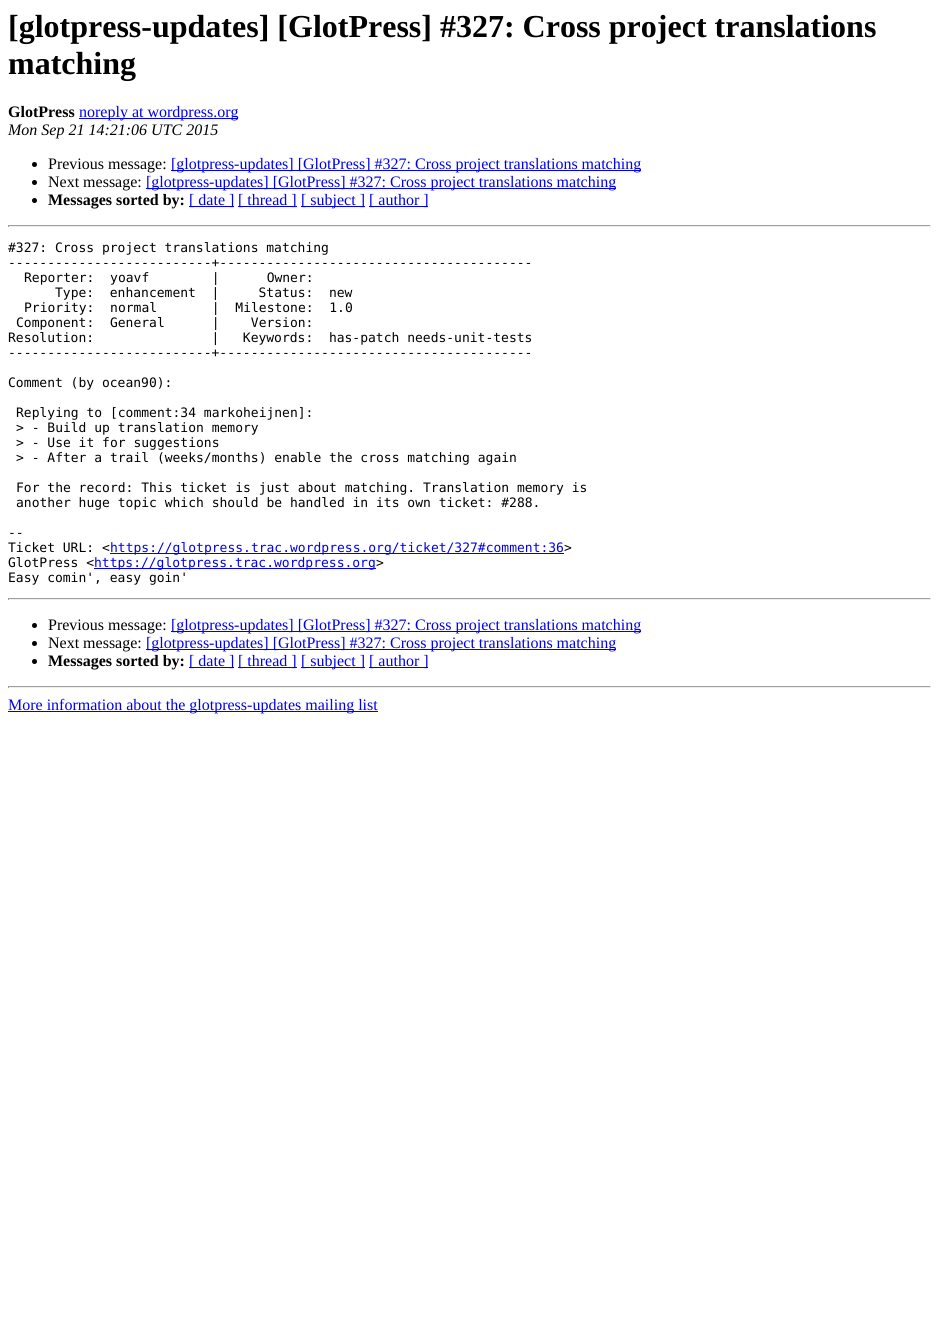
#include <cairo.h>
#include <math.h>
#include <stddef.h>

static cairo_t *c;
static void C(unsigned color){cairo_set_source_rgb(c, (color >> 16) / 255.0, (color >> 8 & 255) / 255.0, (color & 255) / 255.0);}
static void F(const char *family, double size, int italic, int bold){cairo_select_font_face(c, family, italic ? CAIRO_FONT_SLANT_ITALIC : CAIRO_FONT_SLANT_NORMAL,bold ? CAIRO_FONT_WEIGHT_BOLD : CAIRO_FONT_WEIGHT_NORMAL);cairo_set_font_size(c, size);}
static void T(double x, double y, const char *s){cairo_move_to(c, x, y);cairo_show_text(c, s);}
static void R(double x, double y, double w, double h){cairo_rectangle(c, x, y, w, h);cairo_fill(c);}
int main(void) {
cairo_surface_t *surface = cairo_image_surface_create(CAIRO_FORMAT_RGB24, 939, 1321);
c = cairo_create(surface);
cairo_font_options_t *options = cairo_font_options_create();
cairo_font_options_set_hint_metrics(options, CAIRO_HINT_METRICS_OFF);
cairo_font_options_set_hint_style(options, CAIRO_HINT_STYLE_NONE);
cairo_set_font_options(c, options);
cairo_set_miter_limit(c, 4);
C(0xffffff);
cairo_paint(c);
F("Liberation Serif",32,0,1);
C(0x000000);
T(8,37,"[glotpress-updates] [GlotPress] #327: Cross project translations");
T(8,74,"matching");
F("Liberation Serif",16,0,1);
T(8,117,"GlotPress");
C(0x0000ee);
R(79,118,159,1);
F("Liberation Serif",16,0,0);
T(79,117,"noreply at wordpress.org");
F("Liberation Serif",16,1,0);
C(0x000000);
T(8,135,"Mon Sep 21 14:21:06 UTC 2015");
cairo_new_path(c);
cairo_arc(c,34.5,164.5,2.5,0,2 * M_PI);
cairo_fill(c);
F("Liberation Serif",16,0,0);
T(48,169,"Previous message:");
C(0x0000ee);
R(171,170,470,1);
T(171,169,"[glotpress-updates] [GlotPress] #327: Cross project translations matching");
C(0x000000);
cairo_new_path(c);
cairo_arc(c,34.5,182.5,2.5,0,2 * M_PI);
cairo_fill(c);
T(48,187,"Next message:");
C(0x0000ee);
R(146,188,470,1);
T(146,187,"[glotpress-updates] [GlotPress] #327: Cross project translations matching");
C(0x000000);
cairo_new_path(c);
cairo_arc(c,34.5,200.5,2.5,0,2 * M_PI);
cairo_fill(c);
F("Liberation Serif",16,0,1);
T(48,205,"Messages sorted by:");
C(0x0000ee);
R(189,206,45,1);
F("Liberation Serif",16,0,0);
T(189,205,"[ date ]");
R(238,206,59,1);
T(238,205,"[ thread ]");
R(301,206,64,1);
T(301,205,"[ subject ]");
R(369,206,59,1);
T(369,205,"[ author ]");
C(0x9f9f9f);
R(8,225,923,1);
C(0xeeeeee);
R(930,225,1,2);
R(8,226,923,1);
C(0x9f9f9f);
R(8,225,1,2);
F("DejaVu Sans Mono",13,0,0);
C(0x000000);
T(8,252,"#327: Cross project translations matching");
T(8,267,"--------------------------+----------------------------------------");
T(24,282,"Reporter:  yoavf        |      Owner:");
T(55,297,"Type:  enhancement  |     Status:  new");
T(24,312,"Priority:  normal       |  Milestone:  1.0");
T(16,327,"Component:  General      |    Version:");
T(8,342,"Resolution:               |   Keywords:  has-patch needs-unit-tests");
T(8,357,"--------------------------+----------------------------------------");
T(8,387,"Comment (by ocean90):");
T(16,417,"Replying to [comment:34 markoheijnen]:");
T(16,432,"> - Build up translation memory");
T(16,447,"> - Use it for suggestions");
T(16,462,"> - After a trail (weeks/months) enable the cross matching again");
T(16,492,"For the record: This ticket is just about matching. Translation memory is");
T(16,507,"another huge topic which should be handled in its own ticket: #288.");
T(8,537,"--");
T(8,552,"Ticket URL: <");
C(0x0000ee);
R(110,553,454,1);
T(110,552,"https://glotpress.trac.wordpress.org/ticket/327#comment:36");
C(0x000000);
T(564,552,">");
T(8,567,"GlotPress <");
C(0x0000ee);
R(94,568,282,1);
T(94,567,"https://glotpress.trac.wordpress.org");
C(0x000000);
T(376,567,">");
T(8,582,"Easy comin', easy goin'");
C(0x9f9f9f);
R(8,598,923,1);
C(0xeeeeee);
R(930,598,1,2);
R(8,599,923,1);
C(0x9f9f9f);
R(8,598,1,2);
C(0x000000);
cairo_new_path(c);
cairo_arc(c,34.5,625.5,2.5,0,2 * M_PI);
cairo_fill(c);
F("Liberation Serif",16,0,0);
T(48,630,"Previous message:");
C(0x0000ee);
R(171,631,470,1);
T(171,630,"[glotpress-updates] [GlotPress] #327: Cross project translations matching");
C(0x000000);
cairo_new_path(c);
cairo_arc(c,34.5,643.5,2.5,0,2 * M_PI);
cairo_fill(c);
T(48,648,"Next message:");
C(0x0000ee);
R(146,649,470,1);
T(146,648,"[glotpress-updates] [GlotPress] #327: Cross project translations matching");
C(0x000000);
cairo_new_path(c);
cairo_arc(c,34.5,661.5,2.5,0,2 * M_PI);
cairo_fill(c);
F("Liberation Serif",16,0,1);
T(48,666,"Messages sorted by:");
C(0x0000ee);
R(189,667,45,1);
F("Liberation Serif",16,0,0);
T(189,666,"[ date ]");
R(238,667,59,1);
T(238,666,"[ thread ]");
R(301,667,64,1);
T(301,666,"[ subject ]");
R(369,667,59,1);
T(369,666,"[ author ]");
C(0x9f9f9f);
R(8,686,923,1);
C(0xeeeeee);
R(930,686,1,2);
R(8,687,923,1);
C(0x9f9f9f);
R(8,686,1,2);
C(0x0000ee);
R(8,711,370,1);
T(8,710,"More information about the glotpress-updates mailing list");
cairo_surface_write_to_png(surface, "o.png");
cairo_font_options_destroy(options);
cairo_destroy(c);
cairo_surface_destroy(surface);
return 0;
}
